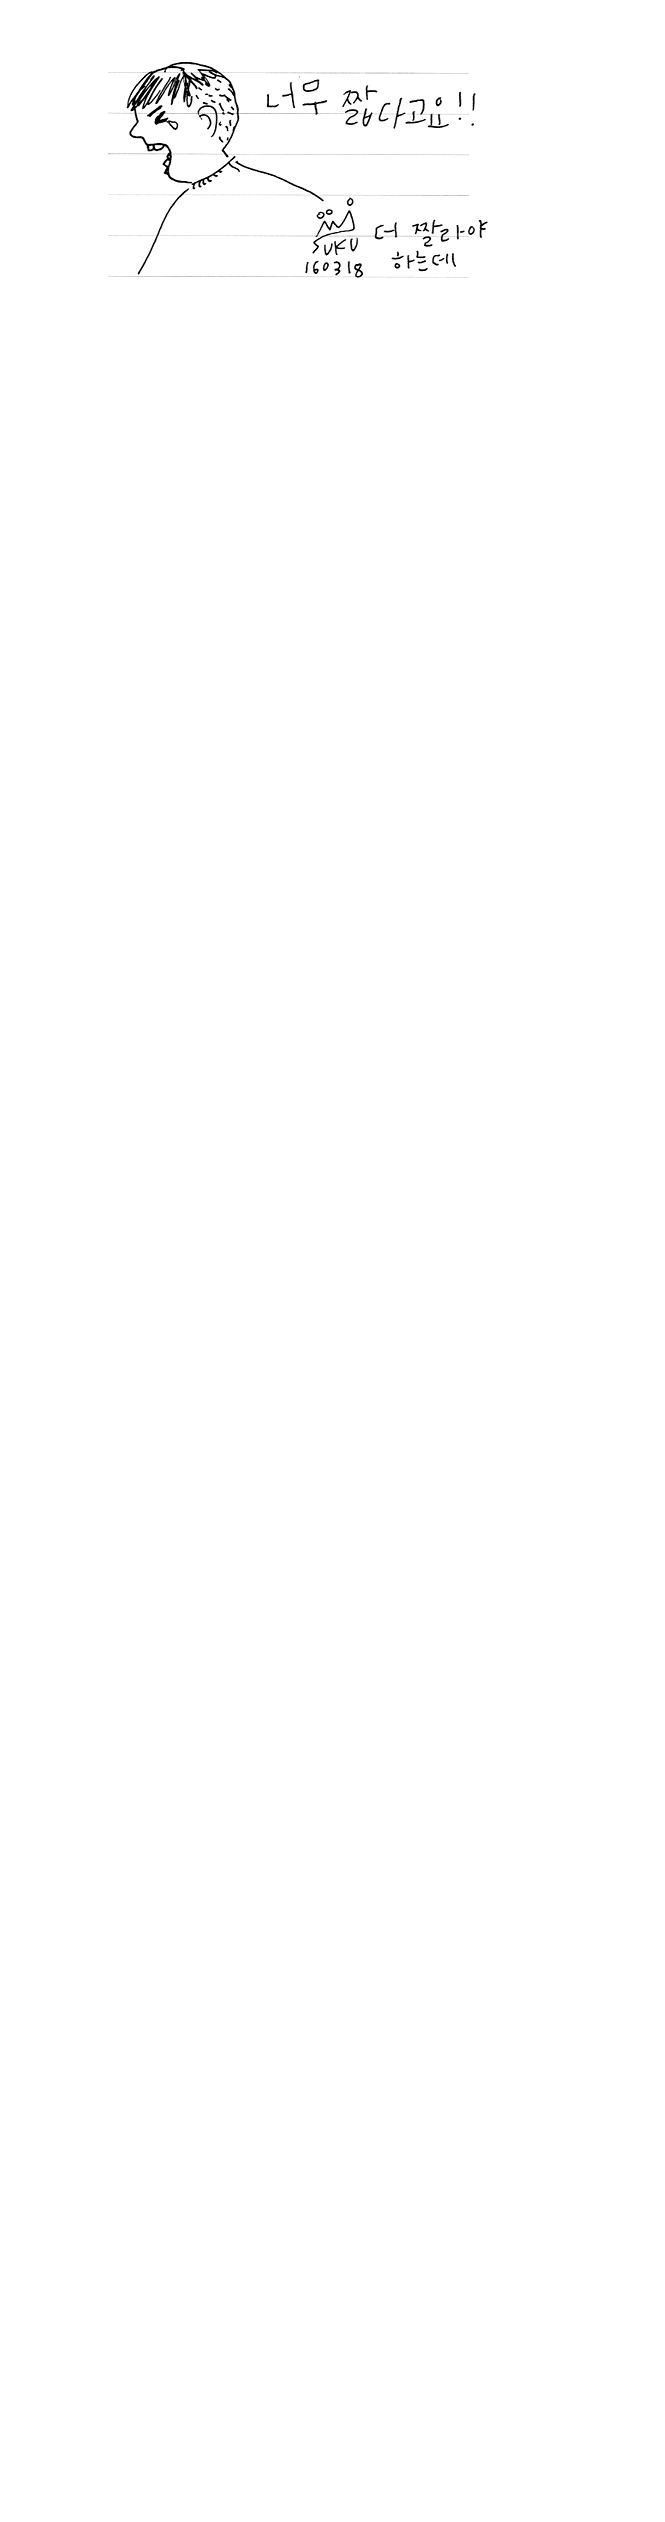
#include <cairo.h>
#include <math.h>
#include <stddef.h>

static cairo_t *c;
static void C(unsigned color){cairo_set_source_rgb(c, (color >> 16) / 255.0, (color >> 8 & 255) / 255.0, (color & 255) / 255.0);}
static void I(const char *path, double x, double y, double w, double h){cairo_surface_t *image = cairo_image_surface_create_from_png(path);cairo_save(c);cairo_set_source_surface(c, image, x, y);cairo_rectangle(c, x, y, w, h);cairo_fill(c);cairo_restore(c);cairo_surface_destroy(image);}
int main(void) {
cairo_surface_t *surface = cairo_image_surface_create(CAIRO_FORMAT_RGB24, 665, 2522);
c = cairo_create(surface);
cairo_font_options_t *options = cairo_font_options_create();
cairo_font_options_set_hint_metrics(options, CAIRO_HINT_METRICS_OFF);
cairo_font_options_set_hint_style(options, CAIRO_HINT_STYLE_NONE);
cairo_set_font_options(c, options);
cairo_set_miter_limit(c, 4);
C(0xffffff);
cairo_paint(c);
I("1.png",108,62,380,216);
cairo_surface_write_to_png(surface, "o.png");
cairo_font_options_destroy(options);
cairo_destroy(c);
cairo_surface_destroy(surface);
return 0;
}
